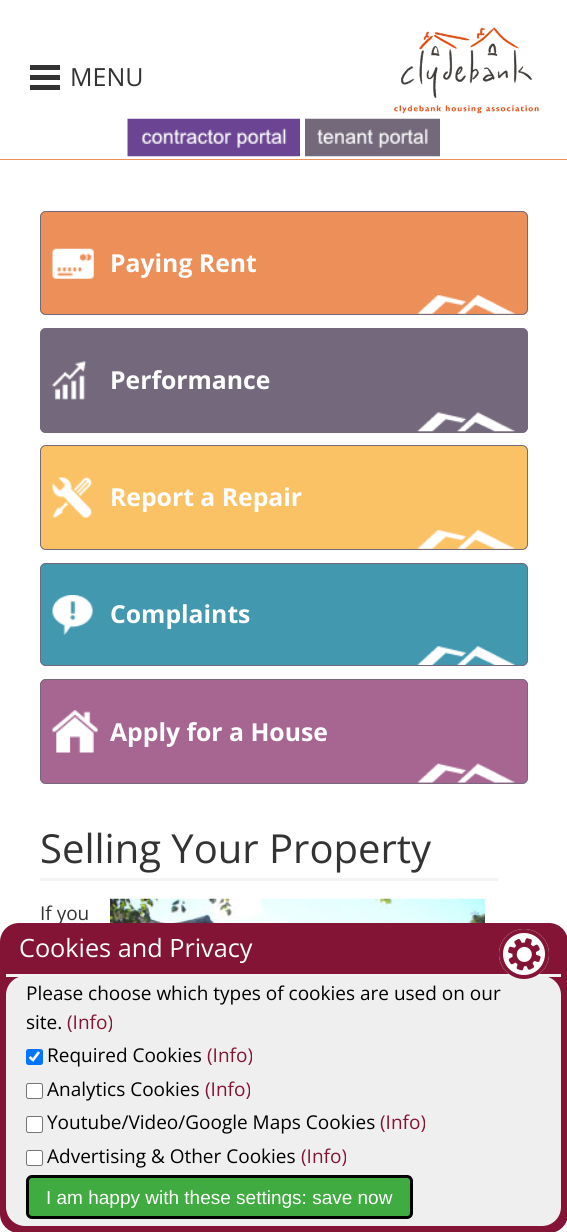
#include <cairo.h>
#include <math.h>
#include <stddef.h>

static cairo_t *c;
static void C(unsigned color){cairo_set_source_rgb(c, (color >> 16) / 255.0, (color >> 8 & 255) / 255.0, (color & 255) / 255.0);}
static void F(const char *family, double size, int italic, int bold){cairo_select_font_face(c, family, italic ? CAIRO_FONT_SLANT_ITALIC : CAIRO_FONT_SLANT_NORMAL,bold ? CAIRO_FONT_WEIGHT_BOLD : CAIRO_FONT_WEIGHT_NORMAL);cairo_set_font_size(c, size);}
static void T(double x, double y, const char *s){cairo_move_to(c, x, y);cairo_show_text(c, s);}
static void R(double x, double y, double w, double h){cairo_rectangle(c, x, y, w, h);cairo_fill(c);}
static void Q(double x, double y, double w, double h, double r){cairo_new_sub_path(c);cairo_arc(c, x + w - r, y + h - r, r, 0, M_PI / 2);cairo_arc(c, x + r, y + h - r, r, M_PI / 2, M_PI);cairo_arc(c, x + r, y + r, r, M_PI, 1.5 * M_PI);cairo_arc(c, x + w - r, y + r, r, 1.5 * M_PI, 2 * M_PI);cairo_close_path(c);}
static void I(const char *path, double x, double y, double w, double h){cairo_surface_t *image = cairo_image_surface_create_from_png(path);cairo_save(c);cairo_set_source_surface(c, image, x, y);cairo_rectangle(c, x, y, w, h);cairo_fill(c);cairo_restore(c);cairo_surface_destroy(image);}
int main(void) {
cairo_surface_t *surface = cairo_image_surface_create(CAIRO_FORMAT_RGB24, 567, 1232);
c = cairo_create(surface);
cairo_font_options_t *options = cairo_font_options_create();
cairo_font_options_set_hint_metrics(options, CAIRO_HINT_METRICS_OFF);
cairo_font_options_set_hint_style(options, CAIRO_HINT_STYLE_NONE);
cairo_set_font_options(c, options);
cairo_set_miter_limit(c, 4);
C(0xffffff);
cairo_paint(c);
C(0xec8f59);
R(0,159,567,1);
I("1.png",394,27,145,87);
I("2.png",30,65,30,25);
F("Open Sans",25,0,0);
C(0x333333);
T(70,86,"MENU");
I("3.png",127,118,173,39);
I("4.png",305,118,135,39);
C(0xec8f59);
Q(40,211,488,104,6);
cairo_fill(c);
I("5.png",52,248,42,31);
Q(40.5,211.5,487,103,5.5);
C(0x74697c);
cairo_set_line_width(c,1);
cairo_stroke(c);
F("Open Sans",24.75,0,1);
C(0xffffff);
T(110,272,"Paying Rent");
I("6.png",417,295,98,19);
C(0x74697c);
Q(40,328,488,105,6);
cairo_fill(c);
I("7.png",52,361,35,39);
Q(40.5,328.5,487,104,5.5);
cairo_stroke(c);
C(0xffffff);
T(110,389,"Performance");
I("8.png",417,412,98,20);
C(0xfbc265);
Q(40,445,488,105,6);
cairo_fill(c);
I("9.png",52,477,40,41);
Q(40.5,445.5,487,104,5.5);
C(0x74697c);
cairo_stroke(c);
C(0xffffff);
T(110,506,"Report a Repair");
I("10.png",417,530,98,19);
C(0x4298af);
Q(40,563,488,103,6);
cairo_fill(c);
I("11.png",52,595,41,40);
Q(40.5,563.5,487,102,5.5);
C(0x74697c);
cairo_stroke(c);
C(0xffffff);
T(110,623,"Complaints");
I("12.png",417,646,98,19);
C(0xa76691);
Q(40,679,488,105,6);
cairo_fill(c);
I("13.png",52,710,46,43);
Q(40.5,679.5,487,104,5.5);
C(0x74697c);
cairo_stroke(c);
C(0xffffff);
T(110,741,"Apply for a House");
I("14.png",417,763,98,20);
C(0xf3f3f3);
R(40,878,458,3);
F("Open Sans",40,0,0);
C(0x333333);
T(40,863,"Selling Your Property");
F("Open Sans",19,0,0);
T(40,920,"If you");
I("15.png",110,898,375,25);
C(0x831435);
Q(3,926,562,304,16);
cairo_fill_preserve(c);
cairo_set_line_width(c,6);
cairo_stroke(c);
C(0xf3f3f3);
R(6,974,555,3);
F("Open Sans",25.25,0,0);
C(0xffffff);
T(19,957,"Cookies and Privacy");
C(0xefefef);
Q(6,976,555,250,19);
cairo_fill(c);
C(0xffffff);
cairo_arc(c,524,954,25,0,2 * M_PI);
cairo_fill(c);
I("16.png",508,938,33,33);
cairo_arc(c,524,954,23,0,2 * M_PI);
C(0x831435);
cairo_set_line_width(c,4);
cairo_stroke(c);
F("Open Sans",19,0,0);
C(0x000000);
T(26,1000,"Please choose which types of cookies are used on our");
T(26,1029,"site.");
C(0x831435);
T(67,1029,"(Info)");
C(0x0075ff);
Q(26,1049,17,16,2.5);
cairo_fill(c);
cairo_new_path(c);
cairo_move_to(c,29.5,1057);
cairo_line_to(c,33,1060);
cairo_line_to(c,39,1052);
C(0xffffff);
cairo_set_line_width(c,2.6);
cairo_stroke(c);
C(0x000000);
T(47,1062,"Required Cookies");
C(0x831435);
T(207,1062,"(Info)");
C(0xffffff);
Q(26.5,1083.5,16,15,2);
cairo_fill_preserve(c);
C(0x767676);
cairo_set_line_width(c,1);
cairo_stroke(c);
C(0x000000);
T(47,1096,"Analytics Cookies");
C(0x831435);
T(205,1096,"(Info)");
C(0xffffff);
Q(26.5,1116.5,16,16,2);
cairo_fill_preserve(c);
C(0x767676);
cairo_stroke(c);
C(0x000000);
T(47,1129,"Youtube/Video/Google Maps Cookies");
C(0x831435);
T(380,1129,"(Info)");
C(0xffffff);
Q(26.5,1150.5,16,15,2);
cairo_fill_preserve(c);
C(0x767676);
cairo_stroke(c);
C(0x000000);
T(47,1163,"Advertising & Other Cookies");
C(0x831435);
T(301,1163,"(Info)");
C(0x40ab40);
Q(27.5,1176.5,384,41,4.5);
cairo_fill_preserve(c);
C(0x000000);
cairo_set_line_width(c,3);
cairo_stroke(c);
F("Liberation Sans",19,0,0);
C(0xffffff);
T(46,1204,"I am happy with these settings: save now");
cairo_surface_write_to_png(surface, "o.png");
cairo_font_options_destroy(options);
cairo_destroy(c);
cairo_surface_destroy(surface);
return 0;
}
